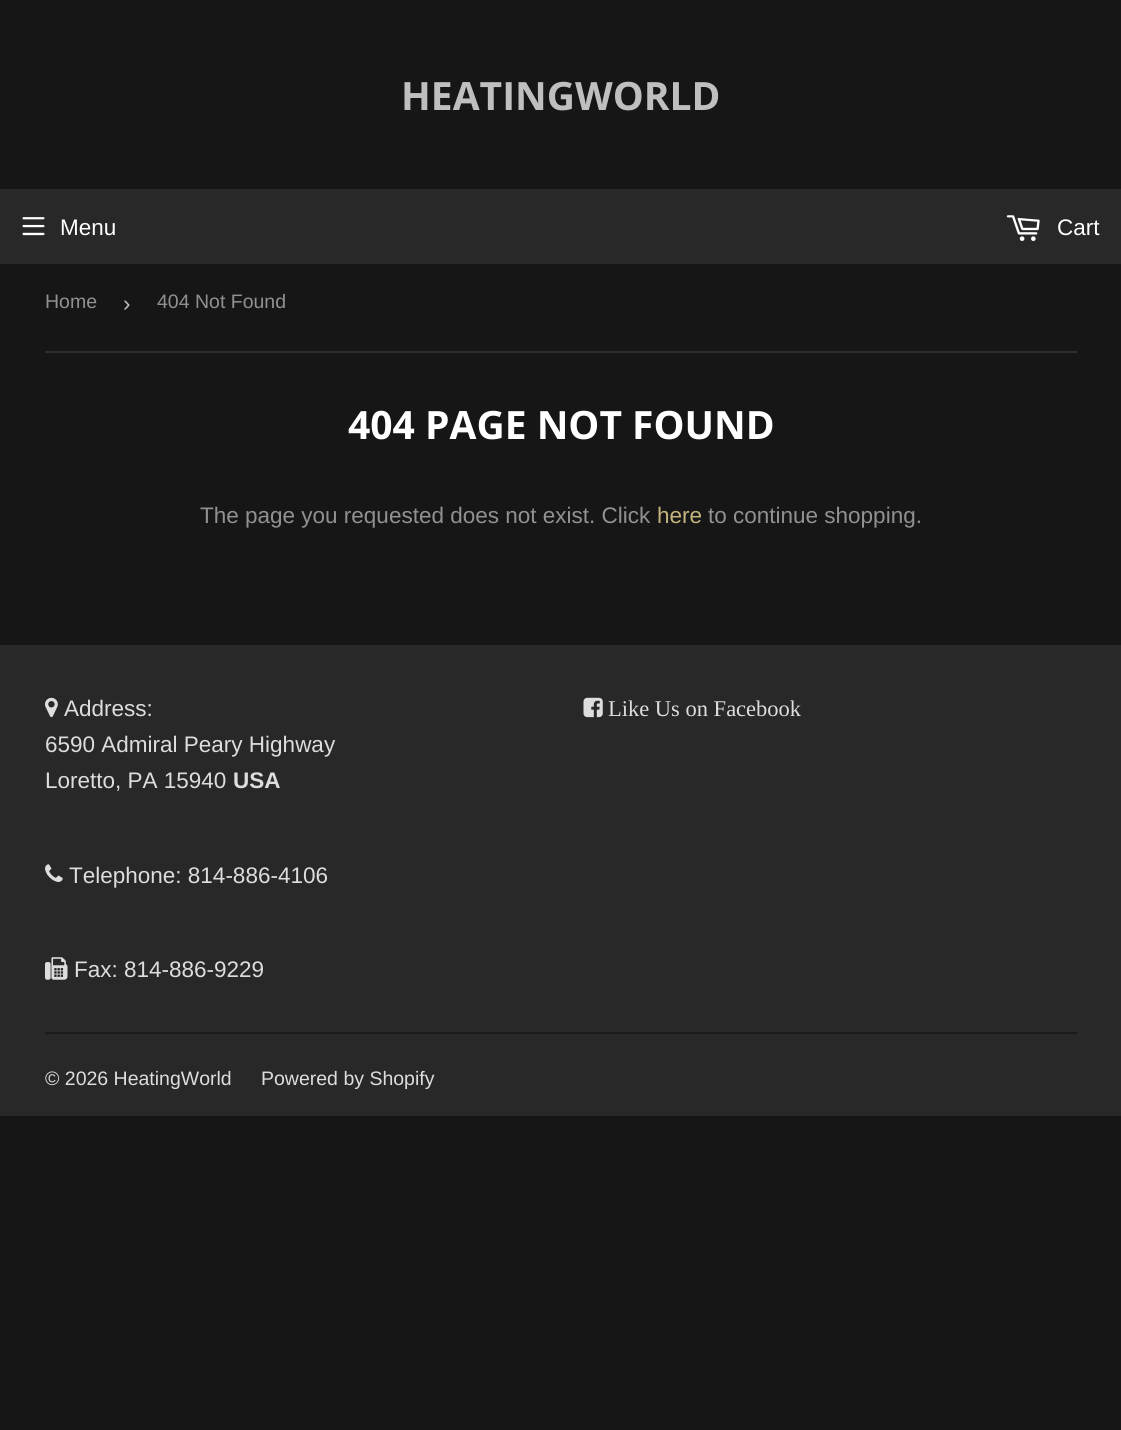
#include <cairo.h>
#include <math.h>
#include <stddef.h>

static cairo_t *c;
static void C(unsigned color){cairo_set_source_rgb(c, (color >> 16) / 255.0, (color >> 8 & 255) / 255.0, (color & 255) / 255.0);}
static void F(const char *family, double size, int italic, int bold){cairo_select_font_face(c, family, italic ? CAIRO_FONT_SLANT_ITALIC : CAIRO_FONT_SLANT_NORMAL,bold ? CAIRO_FONT_WEIGHT_BOLD : CAIRO_FONT_WEIGHT_NORMAL);cairo_set_font_size(c, size);}
static void T(double x, double y, const char *s){cairo_move_to(c, x, y);cairo_show_text(c, s);}
static void R(double x, double y, double w, double h){cairo_rectangle(c, x, y, w, h);cairo_fill(c);}
static void I(const char *path, double x, double y, double w, double h){cairo_surface_t *image = cairo_image_surface_create_from_png(path);cairo_save(c);cairo_set_source_surface(c, image, x, y);cairo_rectangle(c, x, y, w, h);cairo_fill(c);cairo_restore(c);cairo_surface_destroy(image);}
int main(void) {
cairo_surface_t *surface = cairo_image_surface_create(CAIRO_FORMAT_RGB24, 1121, 1430);
c = cairo_create(surface);
cairo_font_options_t *options = cairo_font_options_create();
cairo_font_options_set_hint_metrics(options, CAIRO_HINT_METRICS_OFF);
cairo_font_options_set_hint_style(options, CAIRO_HINT_STYLE_NONE);
cairo_set_font_options(c, options);
cairo_set_miter_limit(c, 4);
C(0x161616);
cairo_paint(c);
F("Open Sans",39,0,1);
C(0xbfbfbf);
T(401,110,"HEATINGWORLD");
C(0x282828);
R(0,189,1121,75);
I("1.png",22,217,23,19);
F("Liberation Sans",22.5,0,0);
C(0xffffff);
T(60,235,"Menu");
I("2.png",1006,215,34,26);
T(1057,235,"Cart");
C(0x2e2e2e);
R(45,351,1032,2);
F("Liberation Sans",19.5,0,0);
C(0x919191);
T(45,308,"Home");
F("Liberation Sans",22.5,0,0);
C(0xbfbfbf);
T(123,311,"›");
F("Liberation Sans",19.5,0,0);
C(0x919191);
T(157,308,"404 Not Found");
F("Open Sans",39,0,1);
C(0xffffff);
T(348,439,"404 PAGE NOT FOUND");
F("Liberation Sans",22.5,0,0);
C(0x919191);
T(200,523,"The page you requested does not exist. Click");
C(0xc4b47f);
T(657,523,"here");
C(0x919191);
T(708,523,"to continue shopping.");
C(0x282828);
R(0,645,1121,471);
I("3.png",45,697,13,21);
C(0xdddddd);
T(64,716,"Address:");
T(45,752,"6590 Admiral Peary Highway");
T(45,788,"Loretto, PA 15940");
F("Liberation Sans",22.5,0,1);
T(233,788,"USA");
I("4.png",45,864,18,18);
F("Liberation Sans",22.5,0,0);
T(69,883,"Telephone: 814-886-4106");
I("5.png",45,957,23,23);
T(74,977,"Fax: 814-886-9229");
I("6.png",583,697,20,21);
F("Liberation Serif",22.5,0,0);
T(608,716,"Like Us on Facebook");
C(0x1b1b1b);
R(45,1032,1032,2);
F("Liberation Sans",19.5,0,0);
C(0xdddddd);
T(45,1085,"© 2026 HeatingWorld");
T(261,1085,"Powered by Shopify");
cairo_surface_write_to_png(surface, "o.png");
cairo_font_options_destroy(options);
cairo_destroy(c);
cairo_surface_destroy(surface);
return 0;
}
